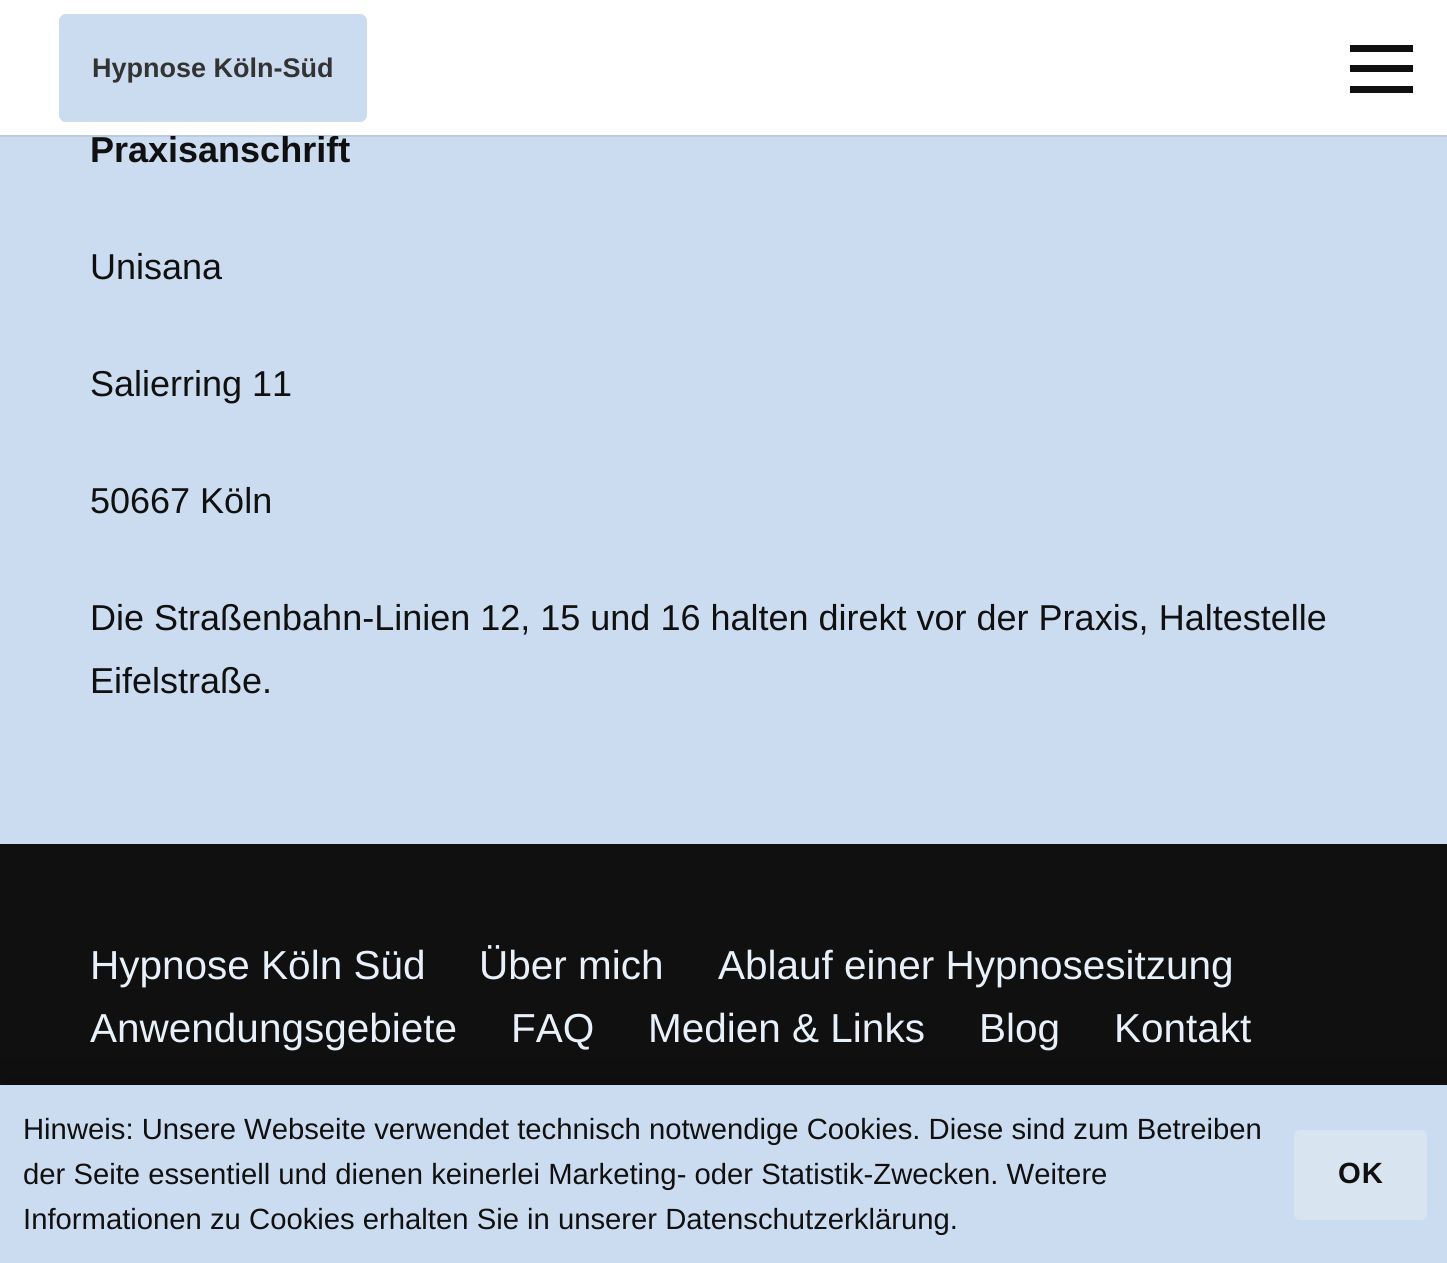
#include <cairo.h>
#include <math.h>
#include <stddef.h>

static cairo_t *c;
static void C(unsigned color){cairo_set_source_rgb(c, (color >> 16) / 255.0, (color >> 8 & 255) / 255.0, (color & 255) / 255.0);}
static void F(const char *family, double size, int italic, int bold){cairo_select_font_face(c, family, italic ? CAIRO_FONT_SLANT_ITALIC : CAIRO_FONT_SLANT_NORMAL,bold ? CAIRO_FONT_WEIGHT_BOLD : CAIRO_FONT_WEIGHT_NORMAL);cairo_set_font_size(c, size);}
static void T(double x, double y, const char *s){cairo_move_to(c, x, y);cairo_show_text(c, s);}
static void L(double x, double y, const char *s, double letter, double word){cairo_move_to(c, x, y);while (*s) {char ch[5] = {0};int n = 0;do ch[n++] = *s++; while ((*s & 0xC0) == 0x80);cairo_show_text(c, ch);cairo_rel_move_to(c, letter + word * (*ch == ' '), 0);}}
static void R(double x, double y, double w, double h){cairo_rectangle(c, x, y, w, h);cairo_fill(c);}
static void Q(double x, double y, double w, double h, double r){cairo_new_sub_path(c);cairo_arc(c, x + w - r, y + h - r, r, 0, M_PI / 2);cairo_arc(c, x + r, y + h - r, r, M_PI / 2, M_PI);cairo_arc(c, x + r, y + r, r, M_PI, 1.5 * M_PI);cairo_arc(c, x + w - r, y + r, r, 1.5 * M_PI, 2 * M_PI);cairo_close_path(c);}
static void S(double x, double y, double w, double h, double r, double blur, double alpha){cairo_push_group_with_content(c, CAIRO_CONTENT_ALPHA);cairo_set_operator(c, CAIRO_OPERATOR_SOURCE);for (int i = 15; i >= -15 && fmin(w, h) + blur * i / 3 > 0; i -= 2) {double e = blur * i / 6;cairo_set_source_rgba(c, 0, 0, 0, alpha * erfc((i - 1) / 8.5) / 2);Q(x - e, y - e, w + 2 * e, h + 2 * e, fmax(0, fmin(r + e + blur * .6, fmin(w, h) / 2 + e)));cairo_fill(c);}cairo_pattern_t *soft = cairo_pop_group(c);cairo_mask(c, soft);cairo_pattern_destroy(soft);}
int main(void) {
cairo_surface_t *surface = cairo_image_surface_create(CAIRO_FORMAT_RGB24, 1447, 1263);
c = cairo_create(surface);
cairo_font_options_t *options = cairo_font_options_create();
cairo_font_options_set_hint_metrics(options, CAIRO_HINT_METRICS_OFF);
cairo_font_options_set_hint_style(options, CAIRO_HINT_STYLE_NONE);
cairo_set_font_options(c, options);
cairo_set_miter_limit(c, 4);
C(0xccdcf0);
cairo_paint(c);
cairo_set_source_rgba(c,0,0,0,0.08);
R(0,135,1447,2);
C(0xffffff);
R(0,0,1447,135);
C(0xccdcf0);
Q(59,14,308,108,7);
cairo_fill(c);
F("Liberation Sans",27,0,1);
C(0x333333);
T(92,77,"Hypnose Köln-Süd");
C(0x101010);
R(1350,65,63,7);
R(1350,45,63,7);
R(1350,86,63,7);
F("Liberation Sans",36,0,1);
T(90,162,"Praxisanschrift");
F("Liberation Sans",36,0,0);
T(90,279,"Unisana");
T(90,396,"Salierring 11");
T(90,513,"50667 Köln");
T(90,630,"Die Straßenbahn-Linien 12, 15 und 16 halten direkt vor der Praxis, Haltestelle");
T(90,693,"Eifelstraße.");
R(0,844,1447,241);
F("Liberation Sans",40.5,0,0);
C(0xe8f0fa);
T(90,979,"Hypnose Köln Süd");
T(479,979,"Über mich");
T(718,979,"Ablauf einer Hypnosesitzung");
T(90,1042,"Anwendungsgebiete");
T(511,1042,"FAQ");
T(648,1042,"Medien & Links");
T(979,1042,"Blog");
T(1114,1042,"Kontakt");
C(0x000000);
S(0,1073,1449,180,0,17,.15);
C(0xccdcf0);
R(0,1085,1447,178);
F("Liberation Sans",29.25,0,0);
C(0x101010);
T(23,1139,"Hinweis: Unsere Webseite verwendet technisch notwendige Cookies. Diese sind zum Betreiben");
T(23,1184,"der Seite essentiell und dienen keinerlei Marketing- oder Statistik-Zwecken. Weitere");
T(23,1229,"Informationen zu Cookies erhalten Sie in unserer Datenschutzerklärung.");
C(0xd9e4f1);
Q(1294,1130,133,90,6);
cairo_fill(c);
F("Liberation Sans",29.25,0,1);
C(0x101010);
L(1338,1183,"OK",1,0);
cairo_surface_write_to_png(surface, "o.png");
cairo_font_options_destroy(options);
cairo_destroy(c);
cairo_surface_destroy(surface);
return 0;
}
